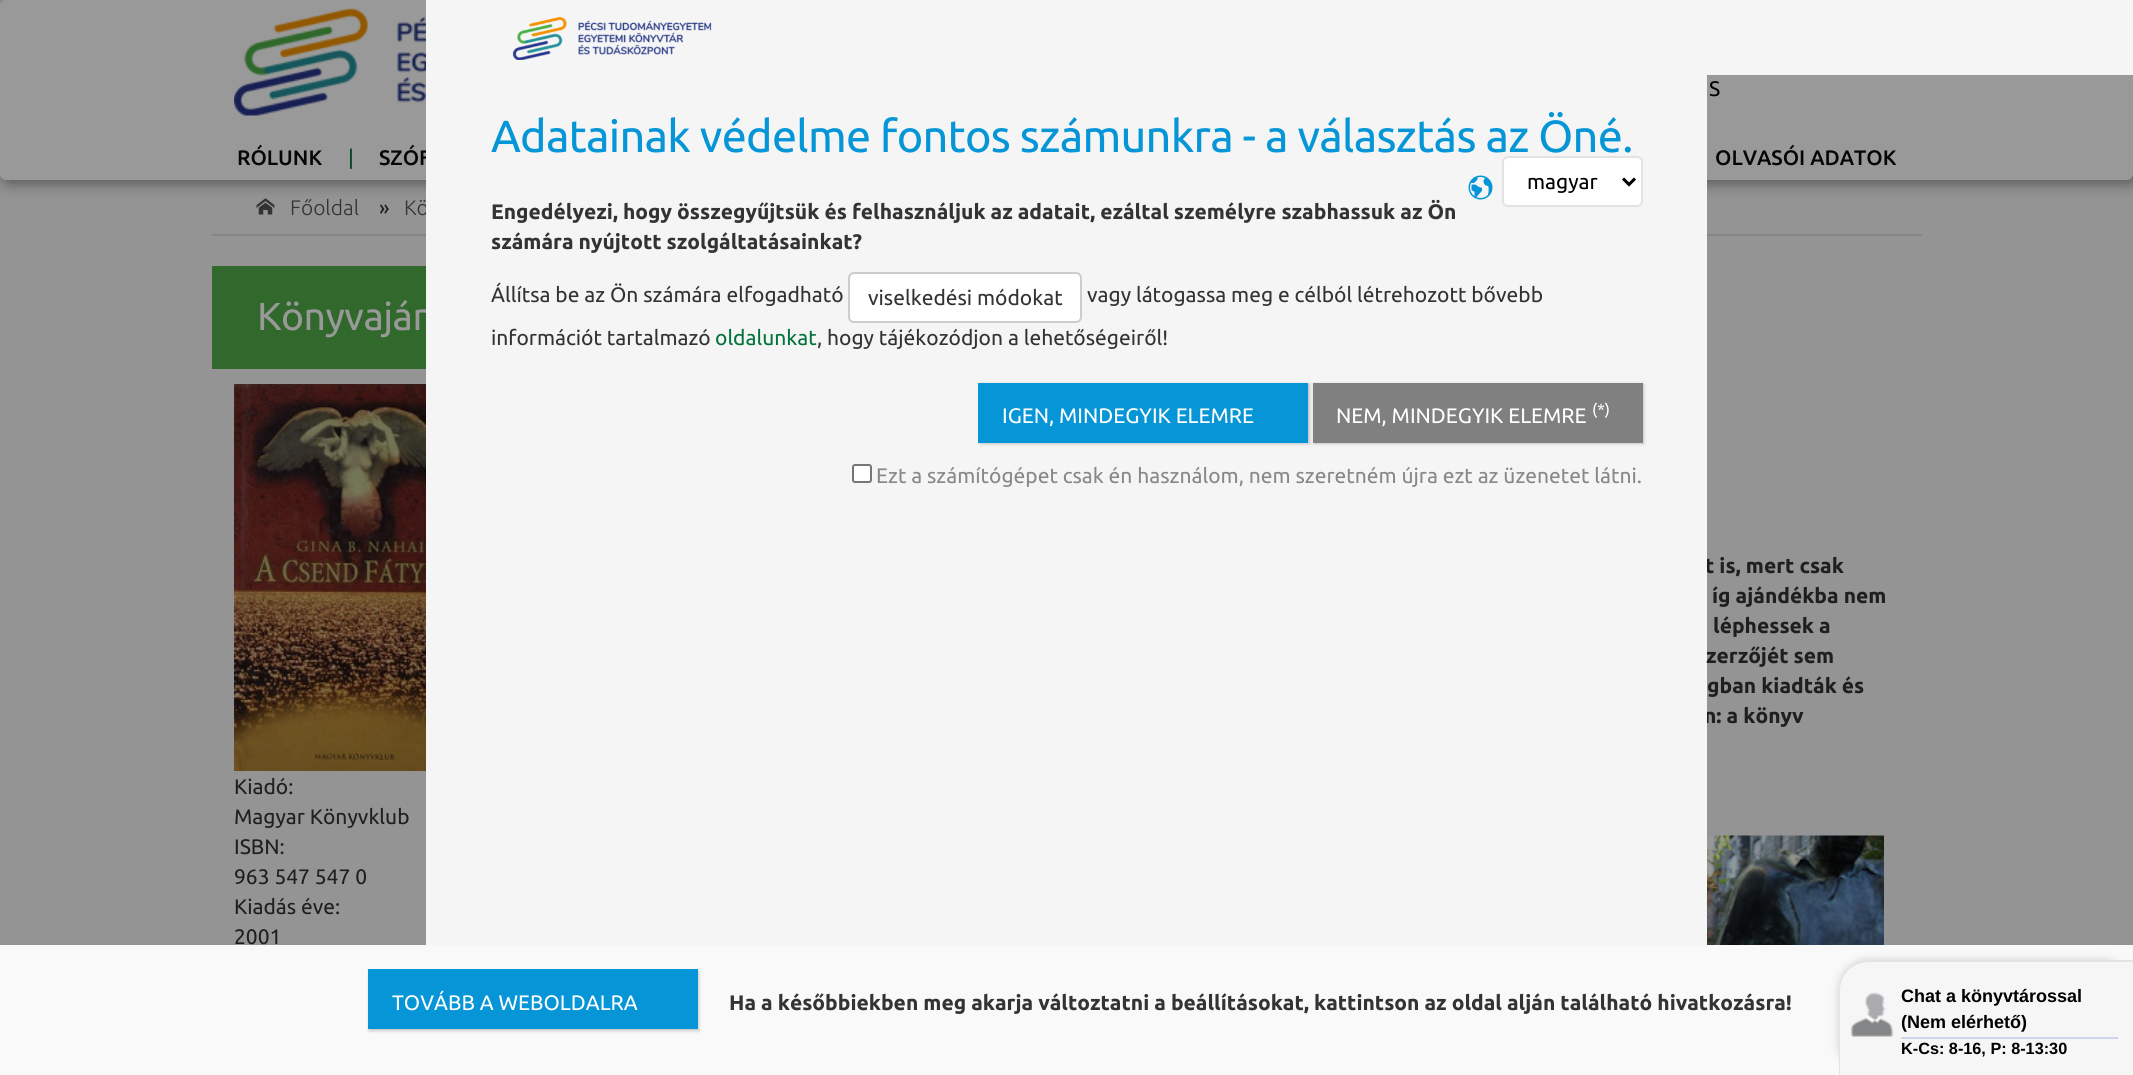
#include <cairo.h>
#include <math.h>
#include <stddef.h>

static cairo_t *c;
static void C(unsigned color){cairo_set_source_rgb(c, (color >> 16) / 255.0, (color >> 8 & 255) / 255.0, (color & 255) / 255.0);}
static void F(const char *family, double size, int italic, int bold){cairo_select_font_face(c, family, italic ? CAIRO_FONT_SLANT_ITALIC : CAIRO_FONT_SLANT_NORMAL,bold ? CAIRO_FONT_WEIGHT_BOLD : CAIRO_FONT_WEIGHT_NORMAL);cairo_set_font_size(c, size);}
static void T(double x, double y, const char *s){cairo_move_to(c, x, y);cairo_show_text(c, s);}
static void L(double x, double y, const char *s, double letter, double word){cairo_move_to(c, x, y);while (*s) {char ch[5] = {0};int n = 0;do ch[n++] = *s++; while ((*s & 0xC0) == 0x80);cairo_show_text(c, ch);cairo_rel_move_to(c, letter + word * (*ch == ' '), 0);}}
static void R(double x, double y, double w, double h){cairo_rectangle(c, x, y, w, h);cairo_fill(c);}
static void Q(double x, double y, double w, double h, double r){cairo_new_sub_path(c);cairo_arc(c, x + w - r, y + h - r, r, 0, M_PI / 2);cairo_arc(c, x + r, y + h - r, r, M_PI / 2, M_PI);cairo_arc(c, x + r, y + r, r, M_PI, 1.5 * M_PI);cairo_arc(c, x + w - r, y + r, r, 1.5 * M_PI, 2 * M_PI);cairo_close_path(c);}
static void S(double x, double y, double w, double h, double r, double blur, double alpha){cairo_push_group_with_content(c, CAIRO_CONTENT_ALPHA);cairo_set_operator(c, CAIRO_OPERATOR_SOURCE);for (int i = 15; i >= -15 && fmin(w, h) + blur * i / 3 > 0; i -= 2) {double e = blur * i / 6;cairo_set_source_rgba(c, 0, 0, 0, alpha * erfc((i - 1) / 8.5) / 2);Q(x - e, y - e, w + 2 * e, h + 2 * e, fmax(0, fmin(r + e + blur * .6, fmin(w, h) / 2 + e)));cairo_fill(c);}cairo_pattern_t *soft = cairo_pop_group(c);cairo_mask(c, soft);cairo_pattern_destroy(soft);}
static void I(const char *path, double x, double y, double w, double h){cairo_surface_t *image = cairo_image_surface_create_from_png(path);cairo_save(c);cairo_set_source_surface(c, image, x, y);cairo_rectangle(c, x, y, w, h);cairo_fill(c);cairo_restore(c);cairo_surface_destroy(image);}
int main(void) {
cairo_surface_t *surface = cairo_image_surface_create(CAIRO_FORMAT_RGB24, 2133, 1075);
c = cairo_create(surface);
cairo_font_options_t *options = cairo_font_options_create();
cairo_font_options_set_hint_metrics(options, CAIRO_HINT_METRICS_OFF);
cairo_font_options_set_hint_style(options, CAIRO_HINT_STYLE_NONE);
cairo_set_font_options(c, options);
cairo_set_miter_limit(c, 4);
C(0x949494);
cairo_paint(c);
C(0x525252);
S(3,3,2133,180,6,7.5,1);
C(0x999999);
Q(0,0,2133,180,6);
cairo_fill(c);
I("1.png",234,8,192,108);
F("Ubuntu",21,0,0);
C(0x000000);
T(1709,96,"S");
F("Ubuntu Medium",21,0,0);
C(0x060606);
T(237,165,"RÓLUNK");
F("Ubuntu",21,0,0);
C(0x014623);
T(348,165,"|");
F("Ubuntu Medium",21,0,0);
C(0x060606);
T(379,165,"SZÓF");
T(1715,165,"OLVASÓI ADATOK");
C(0x858585);
R(212,234,1710,2);
F("Ubuntu Light",21,0,0);
C(0x333333);
T(404,215,"Kö");
C(0x30692b);
R(212,266,214,103);
F("Ubuntu",39,0,0);
C(0x999999);
L(257,330,"Könyvaján",-.5,0);
F("Ubuntu",21,0,1);
C(0x1f1f1f);
T(1705,573,"t is, mert csak");
T(1704,723,"n: a könyv");
C(0xf5f5f5);
R(426,75,1281,870);
R(426,0,1707,75);
I("2.png",512,17,200,43);
F("Ubuntu",45,0,0);
C(0x0696d7);
L(491,152,"Adatainak védelme fontos számunkra - a választás az Öné.",-.72,0);
I("3.png",1468,175,25,25);
C(0xffffff);
Q(1503,157,139,49,5);
cairo_fill_preserve(c);
C(0xe3e3e3);
cairo_stroke(c);
cairo_new_path(c);
cairo_move_to(c,1623,178.5);
cairo_line_to(c,1629,184.5);
cairo_line_to(c,1635,178.5);
C(0x000000);
cairo_set_line_width(c,3);
cairo_stroke(c);
F("Ubuntu",21,0,0);
T(1527,189,"magyar");
F("Ubuntu",21,0,1);
C(0x333333);
T(491,219,"Engedélyezi, hogy összegyűjtsük és felhasználjuk az adatait, ezáltal személyre szabhassuk az Ön");
T(491,249,"számára nyújtott szolgáltatásainkat?");
F("Ubuntu",21,0,0);
T(491,302,"Állítsa be az Ön számára elfogadható");
C(0xffffff);
Q(849,273,232,49,5);
cairo_fill_preserve(c);
C(0xcccccc);
cairo_set_line_width(c,2);
cairo_stroke(c);
C(0x333333);
T(868,305,"viselkedési módokat");
T(1087,302,"vagy látogassa meg e célból létrehozott bővebb");
T(491,345,"információt tartalmazó");
C(0x02743a);
T(715,345,"oldalunkat");
C(0x333333);
T(817,345,", hogy tájékozódjon a lehetőségeiről!");
C(0x000000);
S(980,384,330,60,0,1.5,.2);
C(0x0696d7);
R(978,383,330,60);
C(0xffffff);
T(1002,423,"IGEN, MINDEGYIK ELEMRE");
C(0x000000);
S(1314,384,330,60,0,1.5,.2);
C(0x808080);
R(1313,383,330,60);
C(0xffffff);
T(1336,423,"NEM, MINDEGYIK ELEMRE");
F("Ubuntu",16,0,0);
T(1592,415,"(*)");
Q(853,465,18,17,2);
cairo_fill_preserve(c);
C(0x767676);
cairo_stroke(c);
F("Ubuntu",21,0,0);
C(0x888888);
T(876,483,"Ezt a számítógépet csak én használom, nem szeretném újra ezt az üzenetet látni.");
C(0xf9f9f9);
R(0,945,2133,130);
C(0x000000);
S(369,971,330,60,0,1.5,.2);
C(0x0696d7);
R(368,969,330,60);
C(0xffffff);
T(392,1010,"TOVÁBB A WEBOLDALRA");
F("Ubuntu",21,0,1);
C(0x333333);
T(729,1010,"Ha a későbbiekben meg akarja változtatni a beállításokat, kattintson az oldal alján található hivatkozásra!");
I("4.png",256,198,19,17);
F("Ubuntu Light",21,0,0);
T(290,215,"Főoldal");
F("Ubuntu",21,0,0);
C(0x1f1f1f);
T(379,215,"»");
F("Ubuntu",21,0,1);
T(1712,603,"íg ajándékba nem");
T(1713,633,"léphessek a");
T(1706,663,"zerzőjét sem");
T(1707,693,"gban kiadták és");
I("5.png",1707,835,177,110);
I("6.png",234,384,192,387);
F("Ubuntu",21,0,0);
T(234,794,"Kiadó:");
T(234,824,"Magyar Könyvklub");
T(234,854,"ISBN:");
T(234,884,"963 547 547 0");
T(234,914,"Kiadás éve:");
T(234,944,"2001");
C(0x323232);
S(1838,959,294,115,30,4,.17);
C(0xf6f6f6);
cairo_new_path(c);
cairo_move_to(c,1869,960);
cairo_line_to(c,2133,960);
cairo_line_to(c,2133,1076);
cairo_line_to(c,1839,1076);
cairo_line_to(c,1839,990);
cairo_curve_to(c,1839,973.5,1852.5,960,1869,960);
cairo_close_path(c);
cairo_fill(c);
C(0xe3e3e3);
cairo_set_fill_rule(c,CAIRO_FILL_RULE_EVEN_ODD);
cairo_new_path(c);
cairo_move_to(c,1869,960);
cairo_line_to(c,2133,960);
cairo_line_to(c,2133,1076);
cairo_line_to(c,1839,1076);
cairo_line_to(c,1839,990);
cairo_curve_to(c,1839,973,1852,960,1869,960);
cairo_close_path(c);
cairo_move_to(c,1869,962);
cairo_line_to(c,2133,962);
cairo_line_to(c,2133,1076);
cairo_line_to(c,1840,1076);
cairo_line_to(c,1840,990);
cairo_curve_to(c,1840,974,1853,962,1869,962);
cairo_close_path(c);
cairo_fill(c);
I("7.png",1850,992,44,45);
F("Liberation Sans",18,0,1);
C(0x000000);
T(1901,1002,"Chat a könyvtárossal");
T(1901,1028,"(Nem elérhető)");
C(0xccd6e8);
R(1901,1037,217,2);
F("Liberation Sans",16.25,0,1);
C(0x000000);
T(1901,1054,"K-Cs: 8-16, P: 8-13:30");
cairo_surface_write_to_png(surface, "o.png");
cairo_font_options_destroy(options);
cairo_destroy(c);
cairo_surface_destroy(surface);
return 0;
}
